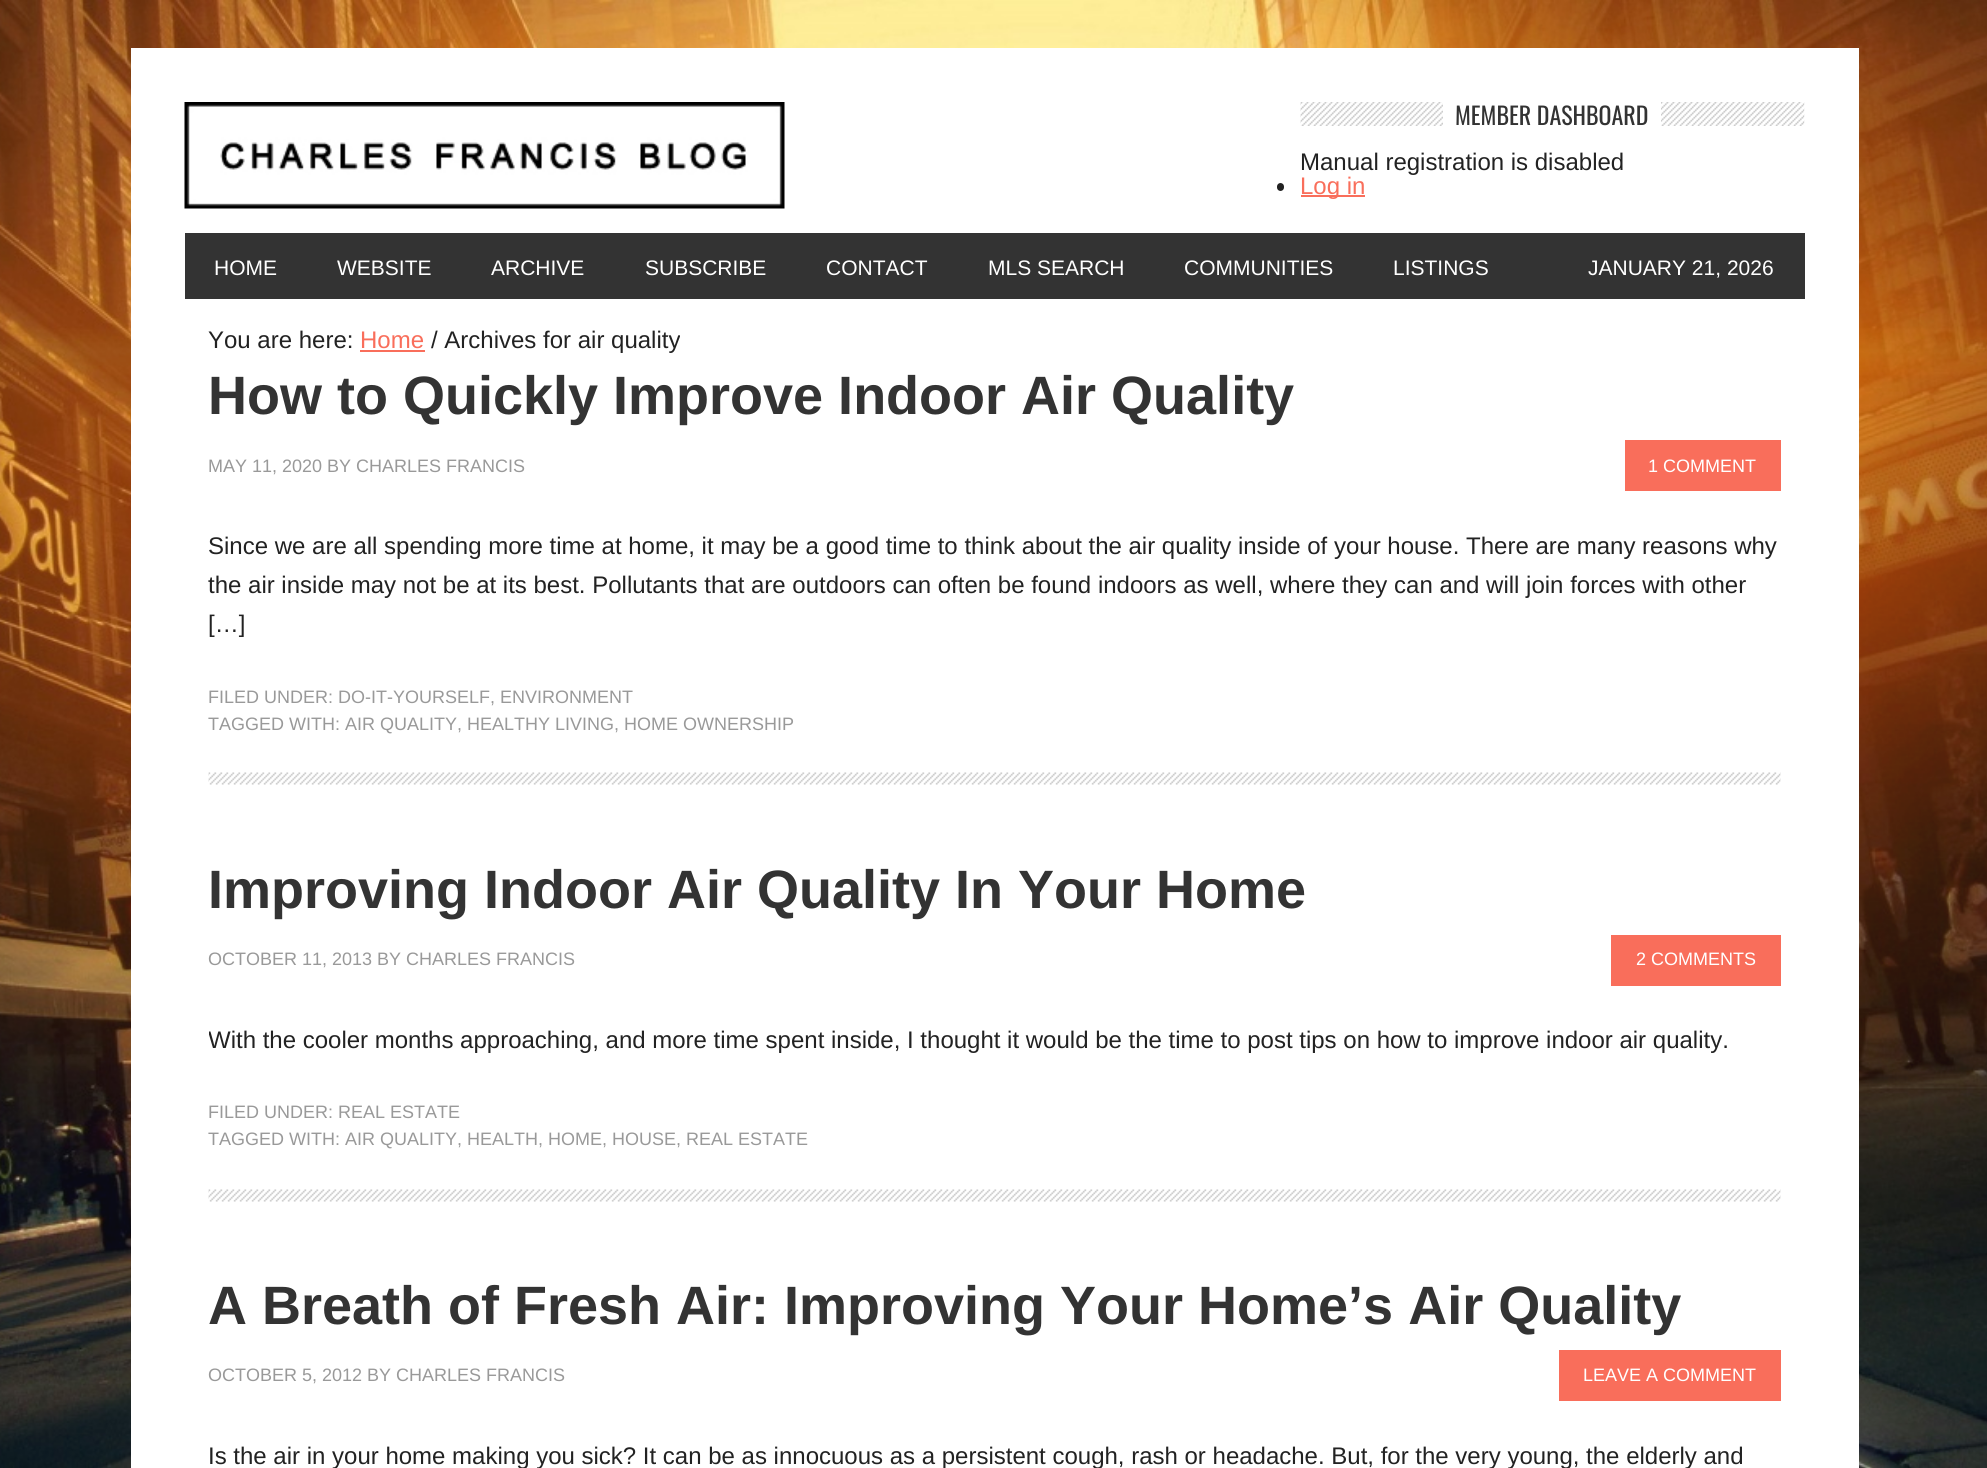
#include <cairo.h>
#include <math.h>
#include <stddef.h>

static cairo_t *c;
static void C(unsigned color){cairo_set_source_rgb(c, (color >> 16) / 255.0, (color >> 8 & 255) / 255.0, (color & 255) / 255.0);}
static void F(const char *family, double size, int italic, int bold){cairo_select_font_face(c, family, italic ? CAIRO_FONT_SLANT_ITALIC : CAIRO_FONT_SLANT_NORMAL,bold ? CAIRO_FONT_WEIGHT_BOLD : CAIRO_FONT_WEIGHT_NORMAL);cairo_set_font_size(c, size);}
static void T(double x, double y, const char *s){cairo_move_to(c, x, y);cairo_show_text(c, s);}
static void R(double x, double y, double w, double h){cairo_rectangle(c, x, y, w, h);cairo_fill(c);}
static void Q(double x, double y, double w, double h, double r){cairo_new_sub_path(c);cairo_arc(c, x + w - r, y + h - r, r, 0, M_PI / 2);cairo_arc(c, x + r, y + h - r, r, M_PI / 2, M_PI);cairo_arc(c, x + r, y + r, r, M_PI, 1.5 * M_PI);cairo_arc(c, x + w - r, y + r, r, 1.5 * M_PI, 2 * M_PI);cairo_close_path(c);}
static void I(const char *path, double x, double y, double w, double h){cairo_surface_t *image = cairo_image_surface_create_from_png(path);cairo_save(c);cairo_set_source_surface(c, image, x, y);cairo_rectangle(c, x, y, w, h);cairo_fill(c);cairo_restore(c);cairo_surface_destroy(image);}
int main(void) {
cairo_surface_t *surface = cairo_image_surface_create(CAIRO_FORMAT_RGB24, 1987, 1468);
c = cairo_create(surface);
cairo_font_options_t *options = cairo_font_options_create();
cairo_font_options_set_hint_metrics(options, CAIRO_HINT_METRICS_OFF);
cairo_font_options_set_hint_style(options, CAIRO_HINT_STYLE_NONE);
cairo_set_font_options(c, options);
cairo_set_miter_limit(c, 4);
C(0xffffff);
cairo_paint(c);
I("1.png",0,0,1987,1468);
C(0xffffff);
R(131,48,1728,1420);
I("2.png",184,102,601,107);
I("3.png",1300,102,505,24);
R(1443,102,218,24);
F("Oswald",24,0,0);
C(0x333333);
T(1455,125,"MEMBER DASHBOARD");
F("Liberation Sans",24,0,0);
C(0x222222);
T(1300,170,"Manual registration is disabled");
Q(1277,183,7,8,3.5);
cairo_fill(c);
C(0xf96e5b);
R(1301,195,64,2);
T(1300,194,"Log in");
C(0x333333);
R(185,233,1620,66);
F("Liberation Sans",21,0,0);
C(0xffffff);
T(214,275,"HOME");
T(337,275,"WEBSITE");
T(491,275,"ARCHIVE");
T(645,275,"SUBSCRIBE");
T(826,275,"CONTACT");
T(988,275,"MLS SEARCH");
T(1184,275,"COMMUNITIES");
T(1393,275,"LISTINGS");
T(1588,275,"JANUARY 21, 2026");
F("Liberation Sans",24,0,0);
C(0x222222);
T(208,348,"You are here:");
C(0xf96e5b);
T(360,348,"Home");
R(360,350,65,2);
C(0x222222);
T(431,348,"/ Archives for air quality");
I("4.png",208,772,1573,13);
F("Liberation Sans",54,0,1);
C(0x333333);
T(208,414,"How to Quickly Improve Indoor Air Quality");
F("Liberation Sans",18,0,0);
C(0x999999);
T(208,472,"MAY 11, 2020 BY CHARLES FRANCIS");
C(0xf96e5b);
R(1625,440,156,51);
C(0xffffff);
T(1648,472,"1 COMMENT");
F("Liberation Sans",24,0,0);
C(0x222222);
T(208,554,"Since we are all spending more time at home, it may be a good time to think about the air quality inside of your house. There are many reasons why");
T(208,593,"the air inside may not be at its best. Pollutants that are outdoors can often be found indoors as well, where they can and will join forces with other");
T(208,632,"[…]");
F("Liberation Sans",18,0,0);
C(0x999999);
T(208,703,"FILED UNDER: DO-IT-YOURSELF, ENVIRONMENT");
T(208,730,"TAGGED WITH: AIR QUALITY, HEALTHY LIVING, HOME OWNERSHIP");
I("5.png",208,1189,1573,13);
F("Liberation Sans",54,0,1);
C(0x333333);
T(208,908,"Improving Indoor Air Quality In Your Home");
F("Liberation Sans",18,0,0);
C(0x999999);
T(208,965,"OCTOBER 11, 2013 BY CHARLES FRANCIS");
C(0xf96e5b);
R(1611,935,170,51);
C(0xffffff);
T(1636,965,"2 COMMENTS");
cairo_save(c);
cairo_rectangle(c,209,1022,1572,78);
cairo_clip(c);
F("Liberation Sans",24,0,0);
C(0x222222);
T(208,1048,"With the cooler months approaching, and more time spent inside, I thought it would be the time to post tips on how to improve indoor air quality.");
cairo_restore(c);
C(0x999999);
T(208,1118,"FILED UNDER: REAL ESTATE");
T(208,1145,"TAGGED WITH: AIR QUALITY, HEALTH, HOME, HOUSE, REAL ESTATE");
F("Liberation Sans",54,0,1);
C(0x333333);
T(208,1324,"A Breath of Fresh Air: Improving Your Home’s Air Quality");
F("Liberation Sans",18,0,0);
C(0x999999);
T(208,1381,"OCTOBER 5, 2012 BY CHARLES FRANCIS");
C(0xf96e5b);
R(1559,1350,222,51);
C(0xffffff);
T(1583,1381,"LEAVE A COMMENT");
F("Liberation Sans",24,0,0);
C(0x222222);
T(208,1464,"Is the air in your home making you sick? It can be as innocuous as a persistent cough, rash or headache. But, for the very young, the elderly and");
cairo_surface_write_to_png(surface, "o.png");
cairo_font_options_destroy(options);
cairo_destroy(c);
cairo_surface_destroy(surface);
return 0;
}
